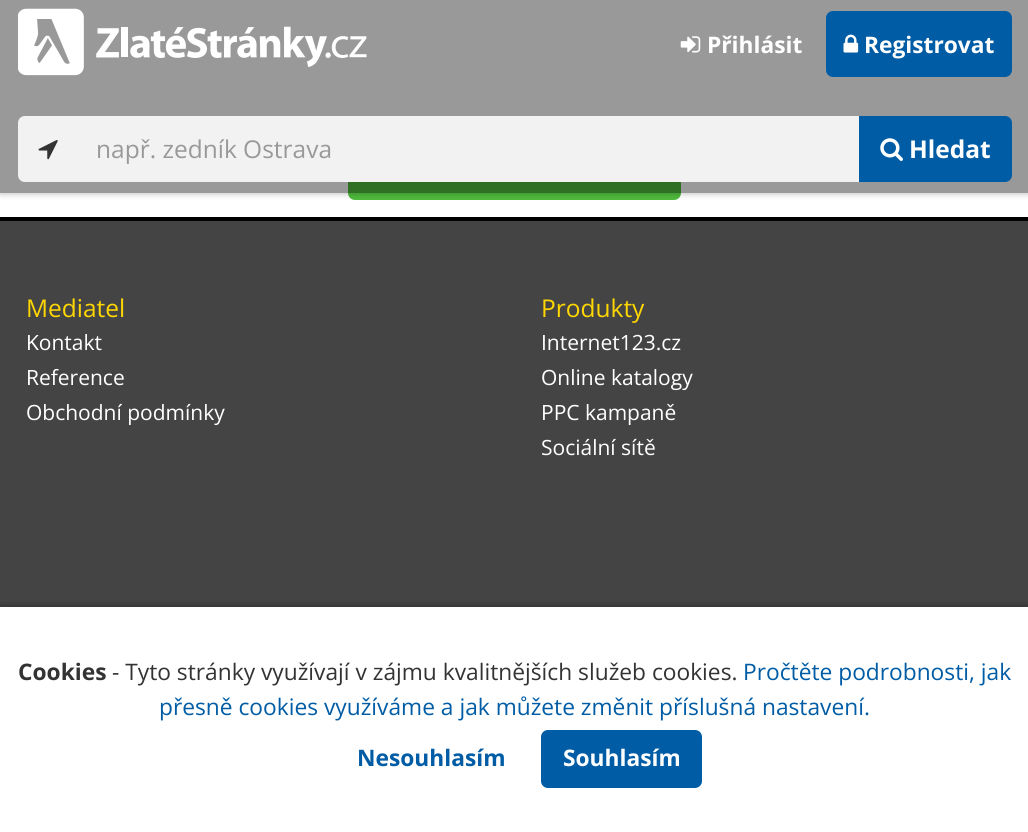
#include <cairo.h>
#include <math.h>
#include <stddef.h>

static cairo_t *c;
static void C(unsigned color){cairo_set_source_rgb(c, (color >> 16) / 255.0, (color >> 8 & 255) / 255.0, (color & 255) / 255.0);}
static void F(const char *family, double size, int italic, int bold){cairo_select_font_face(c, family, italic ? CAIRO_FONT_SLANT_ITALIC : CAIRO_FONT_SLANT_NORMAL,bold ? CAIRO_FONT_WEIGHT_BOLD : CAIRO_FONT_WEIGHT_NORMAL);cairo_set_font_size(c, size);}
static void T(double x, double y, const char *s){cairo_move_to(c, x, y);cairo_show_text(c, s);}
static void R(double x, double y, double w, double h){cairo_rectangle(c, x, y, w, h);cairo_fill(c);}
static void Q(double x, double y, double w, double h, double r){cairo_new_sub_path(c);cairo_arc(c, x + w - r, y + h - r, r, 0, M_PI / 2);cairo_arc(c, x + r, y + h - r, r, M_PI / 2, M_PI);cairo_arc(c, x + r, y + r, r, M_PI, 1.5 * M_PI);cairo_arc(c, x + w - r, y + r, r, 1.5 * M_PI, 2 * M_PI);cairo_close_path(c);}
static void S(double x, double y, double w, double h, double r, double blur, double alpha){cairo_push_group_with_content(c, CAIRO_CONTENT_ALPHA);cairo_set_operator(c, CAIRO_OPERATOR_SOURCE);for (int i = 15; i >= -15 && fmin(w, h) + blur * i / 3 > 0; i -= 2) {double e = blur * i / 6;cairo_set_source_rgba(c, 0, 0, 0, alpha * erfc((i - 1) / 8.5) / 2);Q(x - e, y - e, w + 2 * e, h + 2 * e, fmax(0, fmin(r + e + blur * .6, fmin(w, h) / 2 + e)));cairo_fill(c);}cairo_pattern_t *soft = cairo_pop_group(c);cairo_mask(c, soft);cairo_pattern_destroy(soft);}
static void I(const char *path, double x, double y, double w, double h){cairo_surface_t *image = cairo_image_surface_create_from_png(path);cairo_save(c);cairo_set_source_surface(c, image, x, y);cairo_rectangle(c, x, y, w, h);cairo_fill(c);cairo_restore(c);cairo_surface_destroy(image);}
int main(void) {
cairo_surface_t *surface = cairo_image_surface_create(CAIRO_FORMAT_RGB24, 1028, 832);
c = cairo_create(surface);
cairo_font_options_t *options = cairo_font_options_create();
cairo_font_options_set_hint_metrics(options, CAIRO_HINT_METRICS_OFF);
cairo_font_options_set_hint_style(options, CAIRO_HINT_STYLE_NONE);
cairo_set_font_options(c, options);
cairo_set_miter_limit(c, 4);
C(0xffffff);
cairo_paint(c);
C(0x4fba3c);
Q(348,142,333,58,7);
cairo_fill(c);
cairo_save(c);
cairo_set_fill_rule(c,CAIRO_FILL_RULE_EVEN_ODD);
cairo_new_path(c);
cairo_move_to(c,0,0);
cairo_line_to(c,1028,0);
cairo_line_to(c,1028,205);
cairo_line_to(c,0,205);
cairo_close_path(c);
cairo_move_to(c,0,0);
cairo_line_to(c,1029,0);
cairo_line_to(c,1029,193);
cairo_line_to(c,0,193);
cairo_close_path(c);
cairo_clip(c);
C(0x000000);
S(0,0,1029,193,0,3.5,.3);
cairo_restore(c);
cairo_set_source_rgba(c,0,0,0,0.4);
R(0,0,1028,193);
I("1.png",18,8,349,68);
I("2.png",680,36,21,17);
F("Open Sans",22.75,0,1);
C(0xffffff);
T(707,53,"Přihlásit");
C(0x005ca5);
Q(826,11,186,66,7);
cairo_fill(c);
I("3.png",843,34,16,19);
C(0xffffff);
T(864,53,"Registrovat");
C(0xf2f2f2);
cairo_new_path(c);
cairo_move_to(c,25,116);
cairo_line_to(c,79,116);
cairo_line_to(c,79,182);
cairo_line_to(c,25,182);
cairo_curve_to(c,21,182,18,179,18,175);
cairo_line_to(c,18,123);
cairo_curve_to(c,18,119,21,116,25,116);
cairo_close_path(c);
cairo_fill(c);
I("4.png",38,140,20,20);
R(79,116,780,66);
F("Open Sans",24.5,0,0);
C(0x999999);
T(96,158,"např. zedník Ostrava");
C(0x005ca5);
cairo_new_path(c);
cairo_move_to(c,859,116);
cairo_line_to(c,1005,116);
cairo_curve_to(c,1009,116,1012,119,1012,123);
cairo_line_to(c,1012,175);
cairo_curve_to(c,1012,179,1009,182,1005,182);
cairo_line_to(c,859,182);
cairo_close_path(c);
cairo_fill(c);
I("5.png",880,138,23,23);
F("Open Sans",24.5,0,1);
C(0xffffff);
T(909,158,"Hledat");
C(0x444444);
R(0,221,1028,386);
C(0x000000);
R(0,217,1028,4);
F("Open Sans",24.5,0,0);
C(0xffd700);
T(26,317,"Mediatel");
F("Open Sans",21,0,0);
C(0xffffff);
T(26,350,"Kontakt");
T(26,385,"Reference");
T(26,420,"Obchodní podmínky");
F("Open Sans",24.5,0,0);
C(0xffd700);
T(541,317,"Produkty");
F("Open Sans",21,0,0);
C(0xffffff);
T(541,350,"Internet123.cz");
T(541,385,"Online katalogy");
T(541,420,"PPC kampaně");
T(541,455,"Sociální sítě");
C(0x000000);
S(0,604,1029,226,0,2,.2);
C(0xffffff);
R(0,607,1028,225);
F("Open Sans",22.75,0,1);
C(0x333333);
T(18,680,"Cookies");
F("Open Sans",22.75,0,0);
T(112,680,"- Tyto stránky využívají v zájmu kvalitnějších služeb cookies.");
C(0x005ca5);
T(743,680,"Pročtěte podrobnosti, jak");
T(159,715,"přesně cookies využíváme a jak můžete změnit příslušná nastavení.");
F("Open Sans",22.75,0,1);
T(357,766,"Nesouhlasím");
Q(541,730,161,58,7);
cairo_fill(c);
C(0xffffff);
T(563,766,"Souhlasím");
cairo_surface_write_to_png(surface, "o.png");
cairo_font_options_destroy(options);
cairo_destroy(c);
cairo_surface_destroy(surface);
return 0;
}
